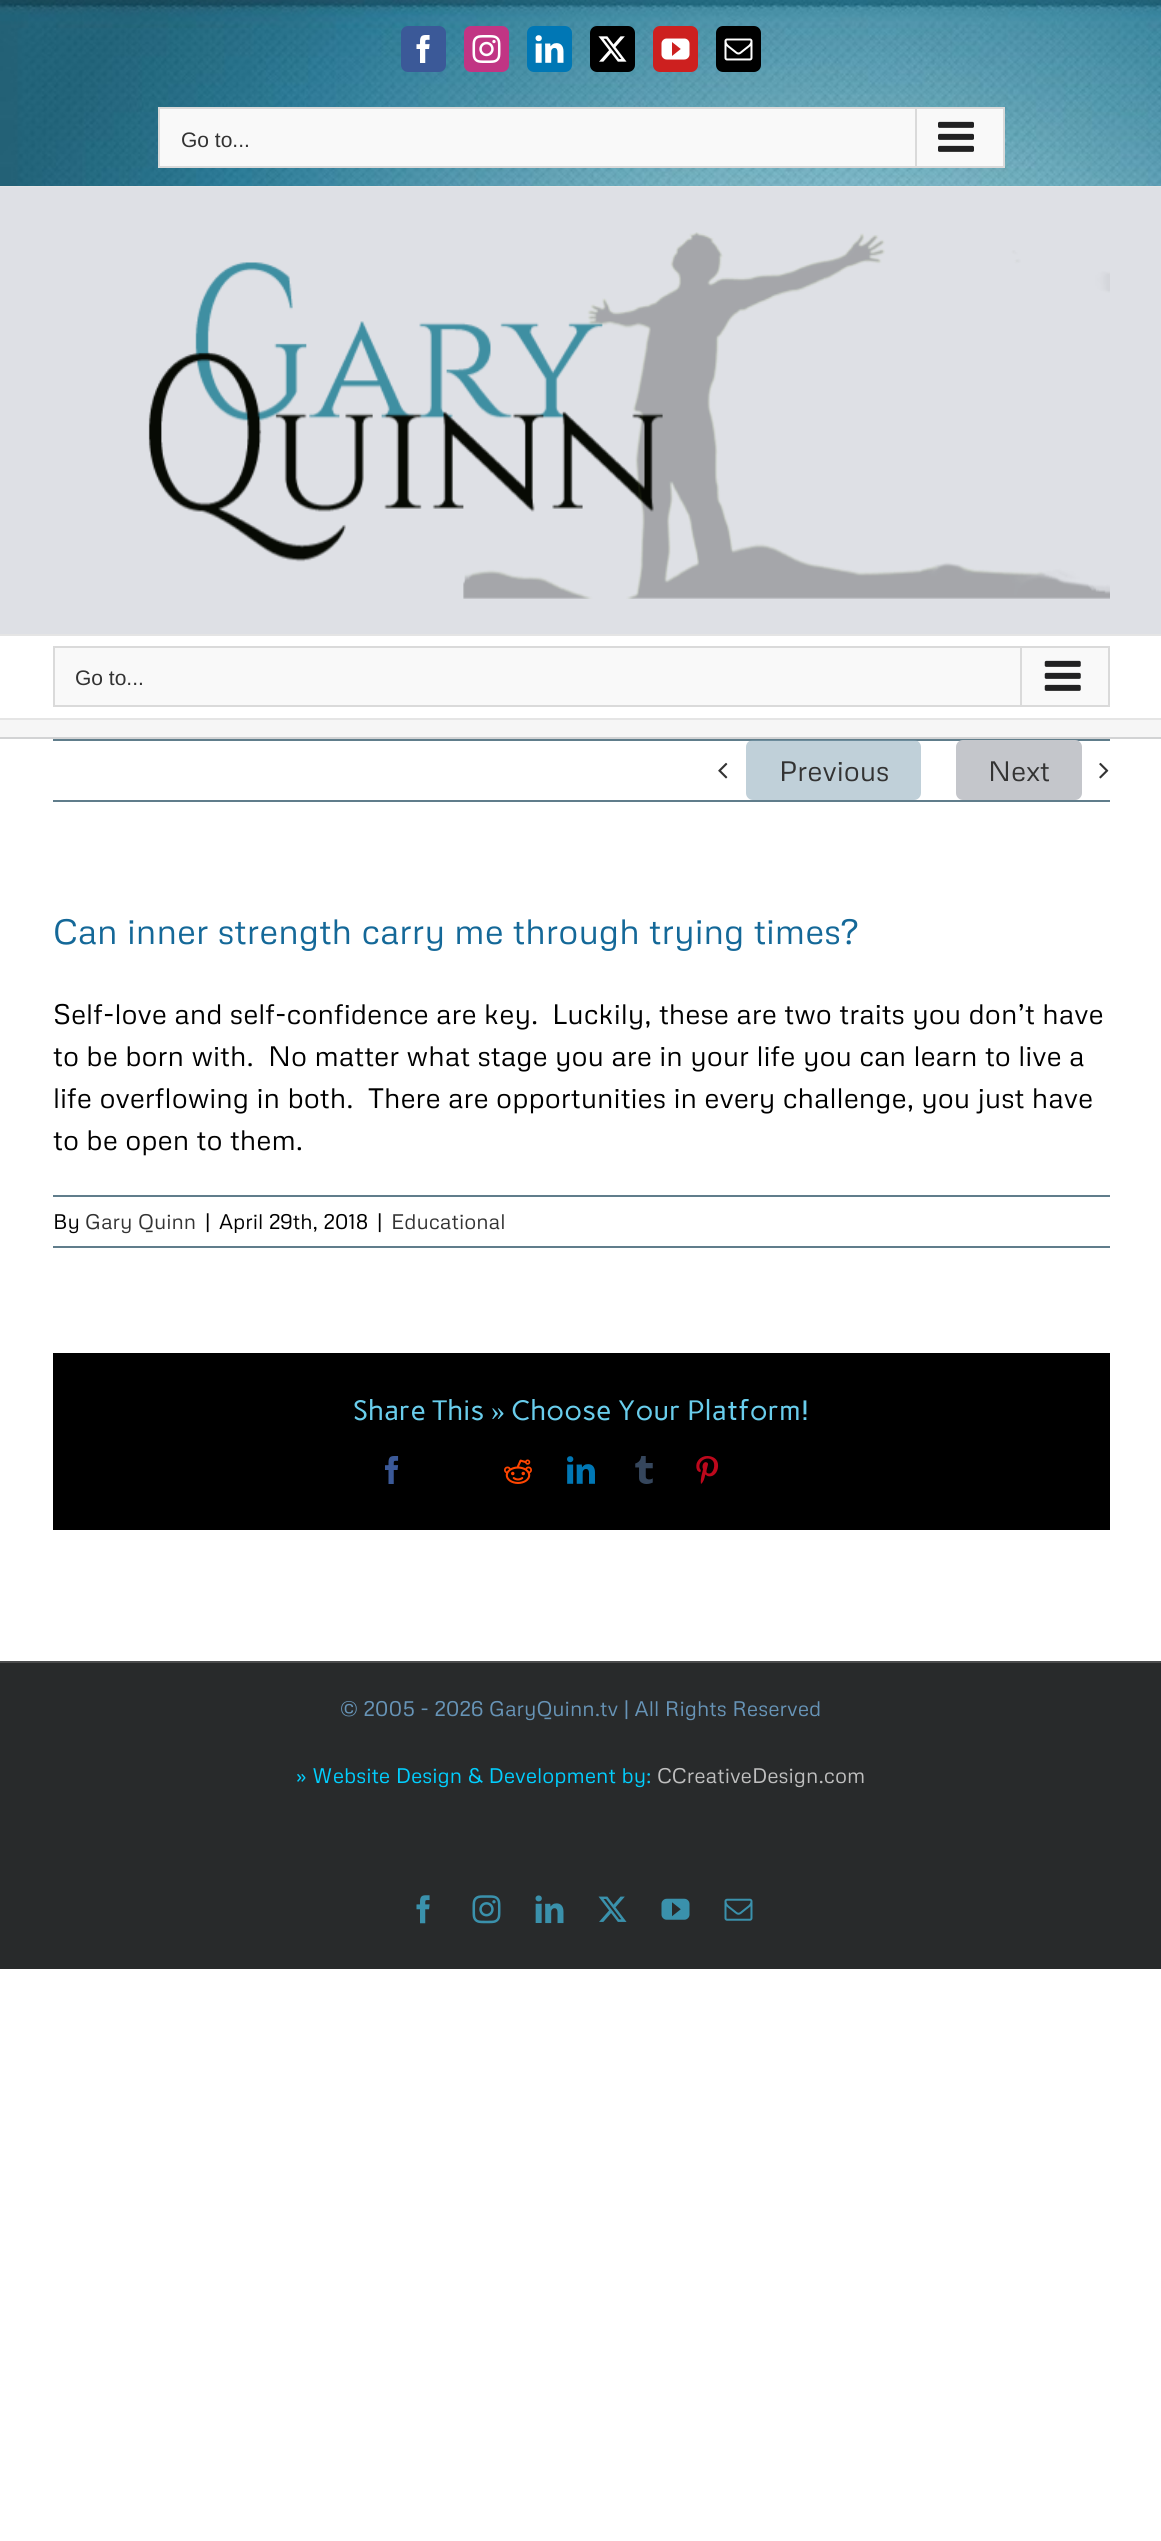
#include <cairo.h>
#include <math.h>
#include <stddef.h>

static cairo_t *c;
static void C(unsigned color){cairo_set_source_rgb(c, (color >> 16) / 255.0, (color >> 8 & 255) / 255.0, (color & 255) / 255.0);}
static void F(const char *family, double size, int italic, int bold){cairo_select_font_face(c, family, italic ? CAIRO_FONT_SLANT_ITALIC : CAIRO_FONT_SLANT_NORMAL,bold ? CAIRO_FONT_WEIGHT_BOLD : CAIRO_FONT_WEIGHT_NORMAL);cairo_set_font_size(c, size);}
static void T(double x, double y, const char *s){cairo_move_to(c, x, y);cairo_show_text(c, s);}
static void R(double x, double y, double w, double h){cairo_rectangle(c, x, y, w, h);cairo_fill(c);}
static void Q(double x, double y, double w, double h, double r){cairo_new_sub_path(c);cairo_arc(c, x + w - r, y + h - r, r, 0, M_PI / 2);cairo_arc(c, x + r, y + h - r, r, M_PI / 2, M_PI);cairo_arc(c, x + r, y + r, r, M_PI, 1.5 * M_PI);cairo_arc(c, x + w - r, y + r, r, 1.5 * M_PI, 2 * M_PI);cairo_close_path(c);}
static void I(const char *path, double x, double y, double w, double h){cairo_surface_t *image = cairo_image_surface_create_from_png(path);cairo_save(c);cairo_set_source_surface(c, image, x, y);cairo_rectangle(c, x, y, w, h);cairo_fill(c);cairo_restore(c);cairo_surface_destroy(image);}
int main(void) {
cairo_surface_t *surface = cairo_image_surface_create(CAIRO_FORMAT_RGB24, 1161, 2541);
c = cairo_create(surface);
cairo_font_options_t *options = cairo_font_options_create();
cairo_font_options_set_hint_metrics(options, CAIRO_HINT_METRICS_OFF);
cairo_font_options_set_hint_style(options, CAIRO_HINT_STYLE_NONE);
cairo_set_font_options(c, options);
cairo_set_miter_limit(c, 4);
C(0xffffff);
cairo_paint(c);
I("1.png",0,0,1161,186);
C(0xe5e5e5);
R(0,186,1161,1);
C(0x3b5998);
Q(402,27,43,44,6);
cairo_fill_preserve(c);
cairo_stroke(c);
I("2.png",416,35,14,28);
C(0xc13584);
Q(465,27,43,44,6);
cairo_fill_preserve(c);
cairo_stroke(c);
I("3.png",472,35,29,28);
C(0x0077b5);
Q(528,27,43,44,6);
cairo_fill_preserve(c);
cairo_stroke(c);
I("4.png",535,35,29,28);
C(0x000000);
Q(591,27,43,44,6);
cairo_fill_preserve(c);
cairo_stroke(c);
I("5.png",598,36,29,26);
C(0xcd201f);
Q(654,27,43,44,6);
cairo_fill_preserve(c);
cairo_stroke(c);
I("6.png",661,38,29,22);
C(0x000000);
Q(717,27,43,44,6);
cairo_fill_preserve(c);
cairo_stroke(c);
I("7.png",724,38,29,23);
C(0xf9f9f9);
cairo_rectangle(c,159,108,845,59);
cairo_fill_preserve(c);
C(0xdadada);
cairo_stroke(c);
F("Liberation Sans",21,0,0);
C(0x333333);
T(181,147,"Go to...");
C(0xdadada);
R(915,109,2,57);
I("8.png",938,121,36,31);
C(0xdee0e5);
R(0,187,1161,447);
C(0xe5e5e5);
R(0,634,1161,2);
I("9.png",148,232,962,367);
R(0,718,1161,2);
C(0xf9f9f9);
cairo_rectangle(c,54,647,1055,59);
cairo_fill_preserve(c);
C(0xdadada);
cairo_stroke(c);
C(0x333333);
T(75,685,"Go to...");
C(0xdadada);
R(1020,648,2,57);
I("10.png",1044,660,37,31);
C(0xf6f6f6);
R(0,720,1161,17);
C(0xd2d3d4);
R(0,737,1161,2);
C(0x607d8b);
R(53,739,1057,2);
R(53,800,1057,2);
cairo_set_source_rgba(c,0.486,0.612,0.686,0.48);
Q(746,740,175,60,7);
cairo_fill(c);
I("11.png",718,762,10,17);
F("Metrophobic",28,0,0);
C(0x333333);
T(779,781,"Previous");
C(0xc4c6cb);
Q(956,740,126,60,7);
cairo_fill(c);
C(0x333333);
T(988,781,"Next");
I("12.png",1099,762,10,17);
F("Metrophobic",35,0,0);
C(0x146898);
T(53,944,"Can inner strength carry me through trying times?");
F("Metrophobic",28,0,0);
C(0x000000);
T(53,1024,"Self-love and self-confidence are key.");
T(552,1024,"Luckily, these are two traits you don’t have");
T(53,1066,"to be born with.");
T(268,1066,"No matter what stage you are in your life you can learn to live a");
T(53,1108,"life overflowing in both.");
T(368,1108,"There are opportunities in every challenge, you just have");
T(53,1150,"to be open to them.");
C(0x607d8b);
R(53,1195,1057,2);
R(53,1246,1057,2);
F("Metrophobic",21,0,0);
C(0x000000);
T(53,1229,"By");
C(0x333333);
T(85,1229,"Gary Quinn");
C(0x000000);
T(205,1229,"|");
T(219,1229,"April 29th, 2018");
T(377,1229,"|");
C(0x333333);
T(391,1229,"Educational");
C(0x000000);
R(53,1353,1057,177);
F("Carme",28,0,0);
C(0x69cdec);
T(353,1420,"Share This");
F("Liberation Serif",28,0,0);
T(491,1420,"»");
F("Carme",28,0,0);
T(511,1420,"Choose Your Platform!");
I("13.png",385,1456,14,28);
I("14.png",504,1459,28,25);
I("15.png",567,1456,28,28);
I("16.png",635,1456,18,28);
I("17.png",696,1456,23,28);
C(0x282a2b);
R(0,1663,1161,306);
C(0x4b4c4d);
R(0,1661,1161,2);
F("Metrophobic",21,0,0);
C(0x6794b7);
T(340,1716,"© 2005 - 2026 GaryQuinn.tv | All Rights Reserved");
C(0x01cfff);
T(296,1783,"» Website Design & Development by:");
C(0xbfbfbf);
T(657,1783,"CCreativeDesign.com");
I("18.png",416,1895,14,29);
I("19.png",472,1895,29,29);
I("20.png",535,1895,29,29);
I("21.png",598,1896,29,26);
I("22.png",661,1898,29,22);
I("23.png",724,1898,29,23);
cairo_surface_write_to_png(surface, "o.png");
cairo_font_options_destroy(options);
cairo_destroy(c);
cairo_surface_destroy(surface);
return 0;
}
